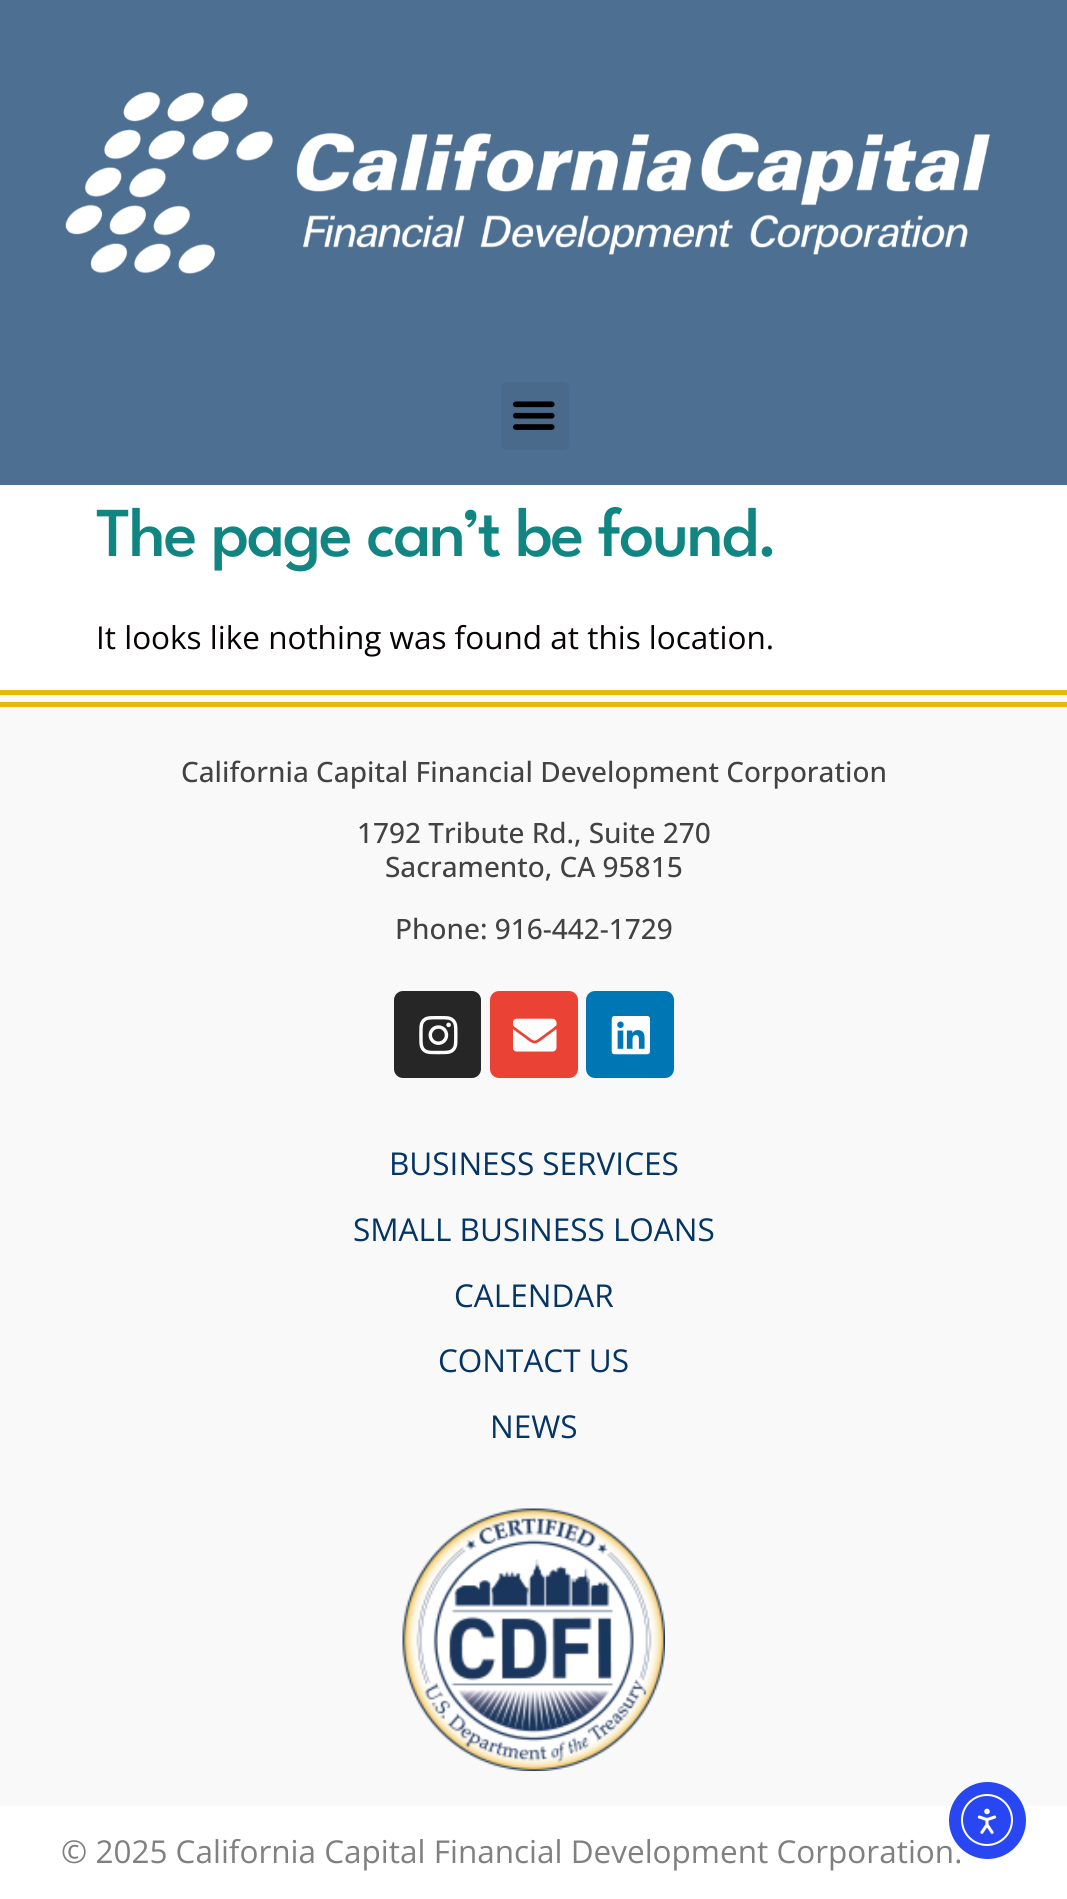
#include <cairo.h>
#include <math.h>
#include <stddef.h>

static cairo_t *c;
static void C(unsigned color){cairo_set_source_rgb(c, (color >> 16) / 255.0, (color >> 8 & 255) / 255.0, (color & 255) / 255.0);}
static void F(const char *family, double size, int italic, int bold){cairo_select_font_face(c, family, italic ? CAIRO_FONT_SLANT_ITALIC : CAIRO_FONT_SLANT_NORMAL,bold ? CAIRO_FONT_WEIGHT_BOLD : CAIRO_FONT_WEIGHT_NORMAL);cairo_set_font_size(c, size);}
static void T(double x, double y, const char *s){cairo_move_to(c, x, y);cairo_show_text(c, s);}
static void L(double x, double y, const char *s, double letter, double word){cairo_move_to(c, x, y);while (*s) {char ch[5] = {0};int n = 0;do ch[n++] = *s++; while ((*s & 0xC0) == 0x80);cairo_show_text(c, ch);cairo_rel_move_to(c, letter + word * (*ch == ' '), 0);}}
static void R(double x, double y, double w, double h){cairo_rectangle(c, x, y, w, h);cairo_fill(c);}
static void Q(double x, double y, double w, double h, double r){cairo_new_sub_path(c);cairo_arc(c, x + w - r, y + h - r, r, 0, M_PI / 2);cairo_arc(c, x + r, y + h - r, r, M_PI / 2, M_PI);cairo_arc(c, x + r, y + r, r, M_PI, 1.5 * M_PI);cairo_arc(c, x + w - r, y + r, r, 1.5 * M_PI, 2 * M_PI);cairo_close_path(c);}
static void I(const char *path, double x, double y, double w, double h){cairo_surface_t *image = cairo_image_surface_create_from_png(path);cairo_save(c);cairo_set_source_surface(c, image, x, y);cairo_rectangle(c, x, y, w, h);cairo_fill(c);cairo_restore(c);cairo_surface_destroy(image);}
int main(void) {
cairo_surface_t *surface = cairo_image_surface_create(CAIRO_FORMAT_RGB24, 1067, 1899);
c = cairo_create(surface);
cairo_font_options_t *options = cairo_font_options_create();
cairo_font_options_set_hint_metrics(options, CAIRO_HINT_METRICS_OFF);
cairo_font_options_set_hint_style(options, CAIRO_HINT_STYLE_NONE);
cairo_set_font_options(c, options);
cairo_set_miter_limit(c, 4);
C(0xffffff);
cairo_paint(c);
C(0x4d7092);
R(0,0,1067,485);
I("1.png",65,91,925,183);
C(0x496a8b);
Q(501,382,68,68,5);
cairo_fill(c);
I("2.png",512,401,43,29);
F("League Spartan Medium",70,0,0);
C(0x118582);
L(96,556,"The page can’t be found.",-2.1,0);
F("Open Sans",31.5,0,0);
C(0x070303);
T(96,649,"It looks like nothing was found at this location.");
C(0xf9f9f9);
R(0,695,1067,1111);
C(0xe9b706);
R(0,690,1067,5);
R(0,702,1067,5);
F("Open Sans Medium",28,0,0);
C(0x424242);
T(181,782,"California Capital Financial Development Corporation");
T(357,843,"1792 Tribute Rd., Suite 270");
T(385,877,"Sacramento, CA 95815");
T(395,939,"Phone: 916-442-1729");
C(0x262626);
Q(394,991,87,87,9);
cairo_fill(c);
I("3.png",419,1016,39,39);
C(0xea4335);
Q(490,991,88,87,9);
cairo_fill(c);
I("4.png",513,1018,44,34);
C(0x0077b5);
Q(586,991,88,87,9);
cairo_fill(c);
I("5.png",611,1016,39,39);
F("Open Sans",31.5,0,0);
C(0x043565);
T(389,1175,"BUSINESS SERVICES");
T(353,1241,"SMALL BUSINESS LOANS");
T(454,1307,"CALENDAR");
T(438,1372,"CONTACT US");
T(490,1438,"NEWS");
I("6.png",402,1508,263,263);
C(0x808080);
T(61,1863,"© 2025 California Capital Financial Development Corporation.");
C(0x2847f3);
cairo_new_path(c);
cairo_arc(c,987.5,1820.5,38.5,0,2 * M_PI);
cairo_fill(c);
cairo_arc(c,987,1820,25,0,2 * M_PI);
C(0xffffff);
cairo_stroke(c);
I("7.png",977,1808,20,26);
cairo_surface_write_to_png(surface, "o.png");
cairo_font_options_destroy(options);
cairo_destroy(c);
cairo_surface_destroy(surface);
return 0;
}
